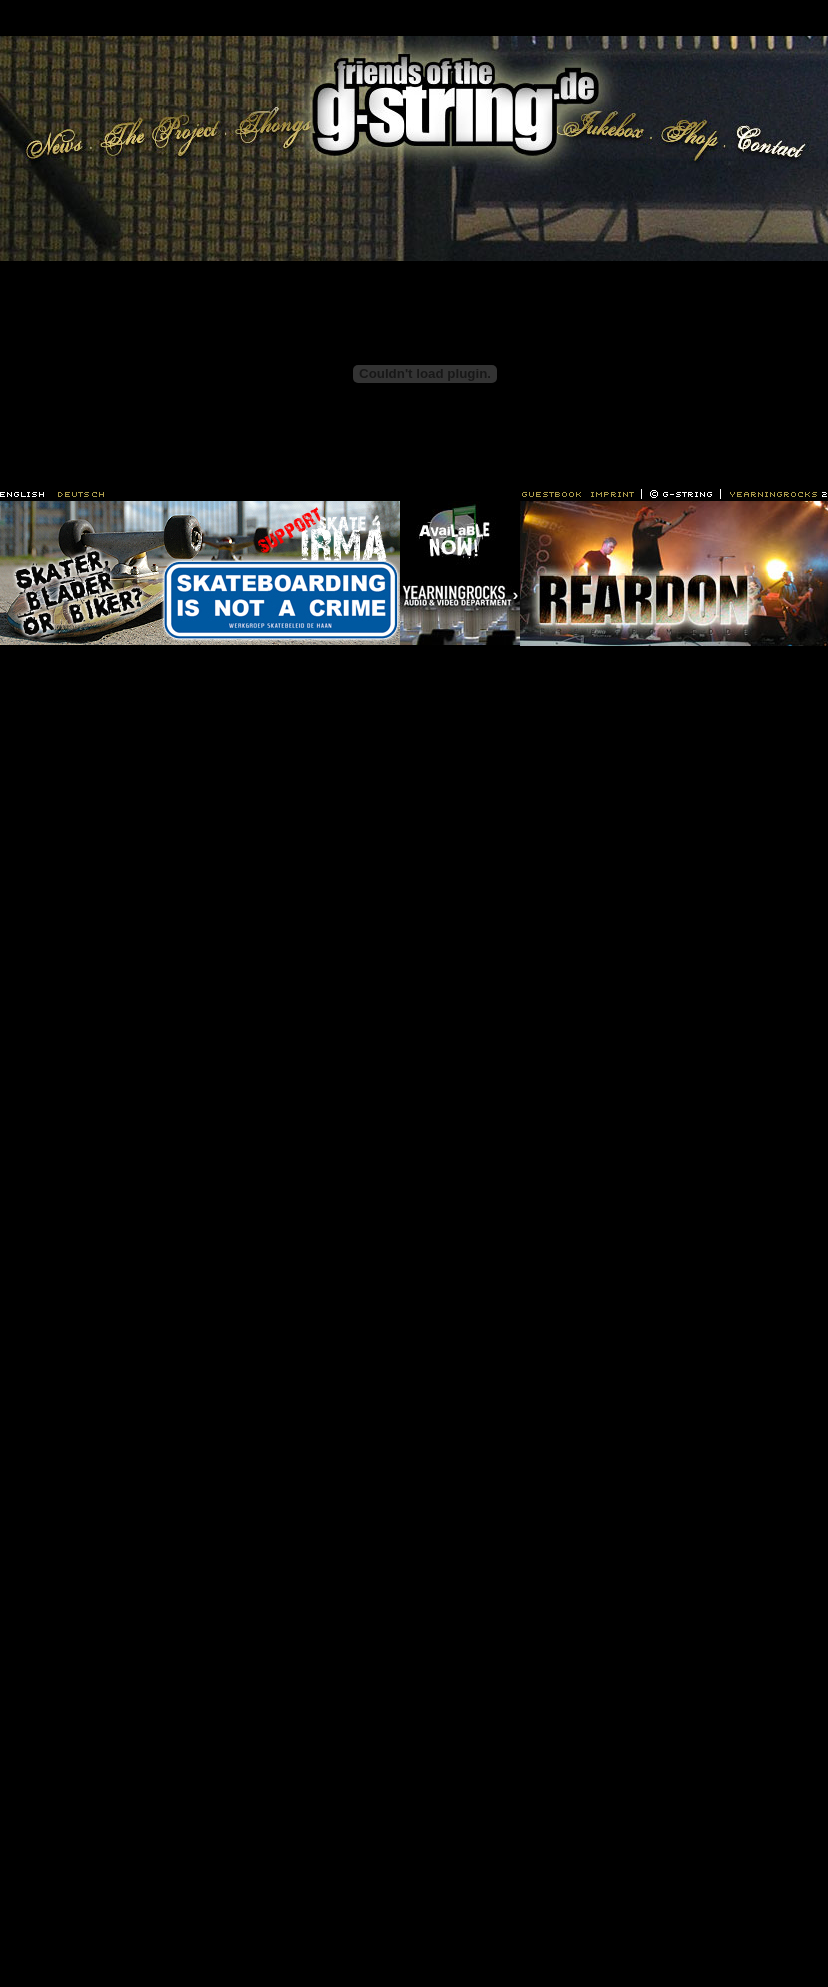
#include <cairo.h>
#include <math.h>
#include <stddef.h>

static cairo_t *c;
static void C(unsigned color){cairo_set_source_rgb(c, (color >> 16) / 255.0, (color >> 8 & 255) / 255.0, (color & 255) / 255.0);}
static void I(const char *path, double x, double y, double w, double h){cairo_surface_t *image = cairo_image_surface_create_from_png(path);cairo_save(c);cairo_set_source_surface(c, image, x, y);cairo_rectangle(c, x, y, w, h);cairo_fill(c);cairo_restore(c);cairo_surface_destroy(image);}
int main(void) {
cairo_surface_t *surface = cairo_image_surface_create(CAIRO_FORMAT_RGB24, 828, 1987);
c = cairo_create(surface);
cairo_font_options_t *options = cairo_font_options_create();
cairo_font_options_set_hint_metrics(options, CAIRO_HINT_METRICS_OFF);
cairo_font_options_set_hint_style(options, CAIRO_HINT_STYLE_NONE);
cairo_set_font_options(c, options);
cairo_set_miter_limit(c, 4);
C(0x000000);
cairo_paint(c);
I("1.png",0,36,310,69);
I("2.png",310,36,247,133);
I("3.png",557,36,271,69);
I("4.png",0,105,94,64);
I("5.png",94,105,129,64);
I("6.png",223,105,87,64);
I("7.png",557,105,99,64);
I("8.png",656,105,75,64);
I("9.png",731,105,97,64);
I("10.png",0,169,310,92);
I("11.png",310,169,247,92);
I("12.png",557,169,271,92);
I("13.png",353,365,144,18);
I("14.png",0,492,44,5);
I("15.png",58,492,46,5);
I("16.png",522,492,59,5);
I("17.png",591,492,43,5);
I("18.png",641,489,80,10);
I("19.png",730,492,87,5);
I("20.png",822,492,5,5);
I("21.png",0,501,400,144);
I("22.png",416,501,80,64);
I("23.png",520,501,308,73);
I("24.png",400,581,120,64);
I("25.png",520,574,308,72);
cairo_surface_write_to_png(surface, "o.png");
cairo_font_options_destroy(options);
cairo_destroy(c);
cairo_surface_destroy(surface);
return 0;
}
